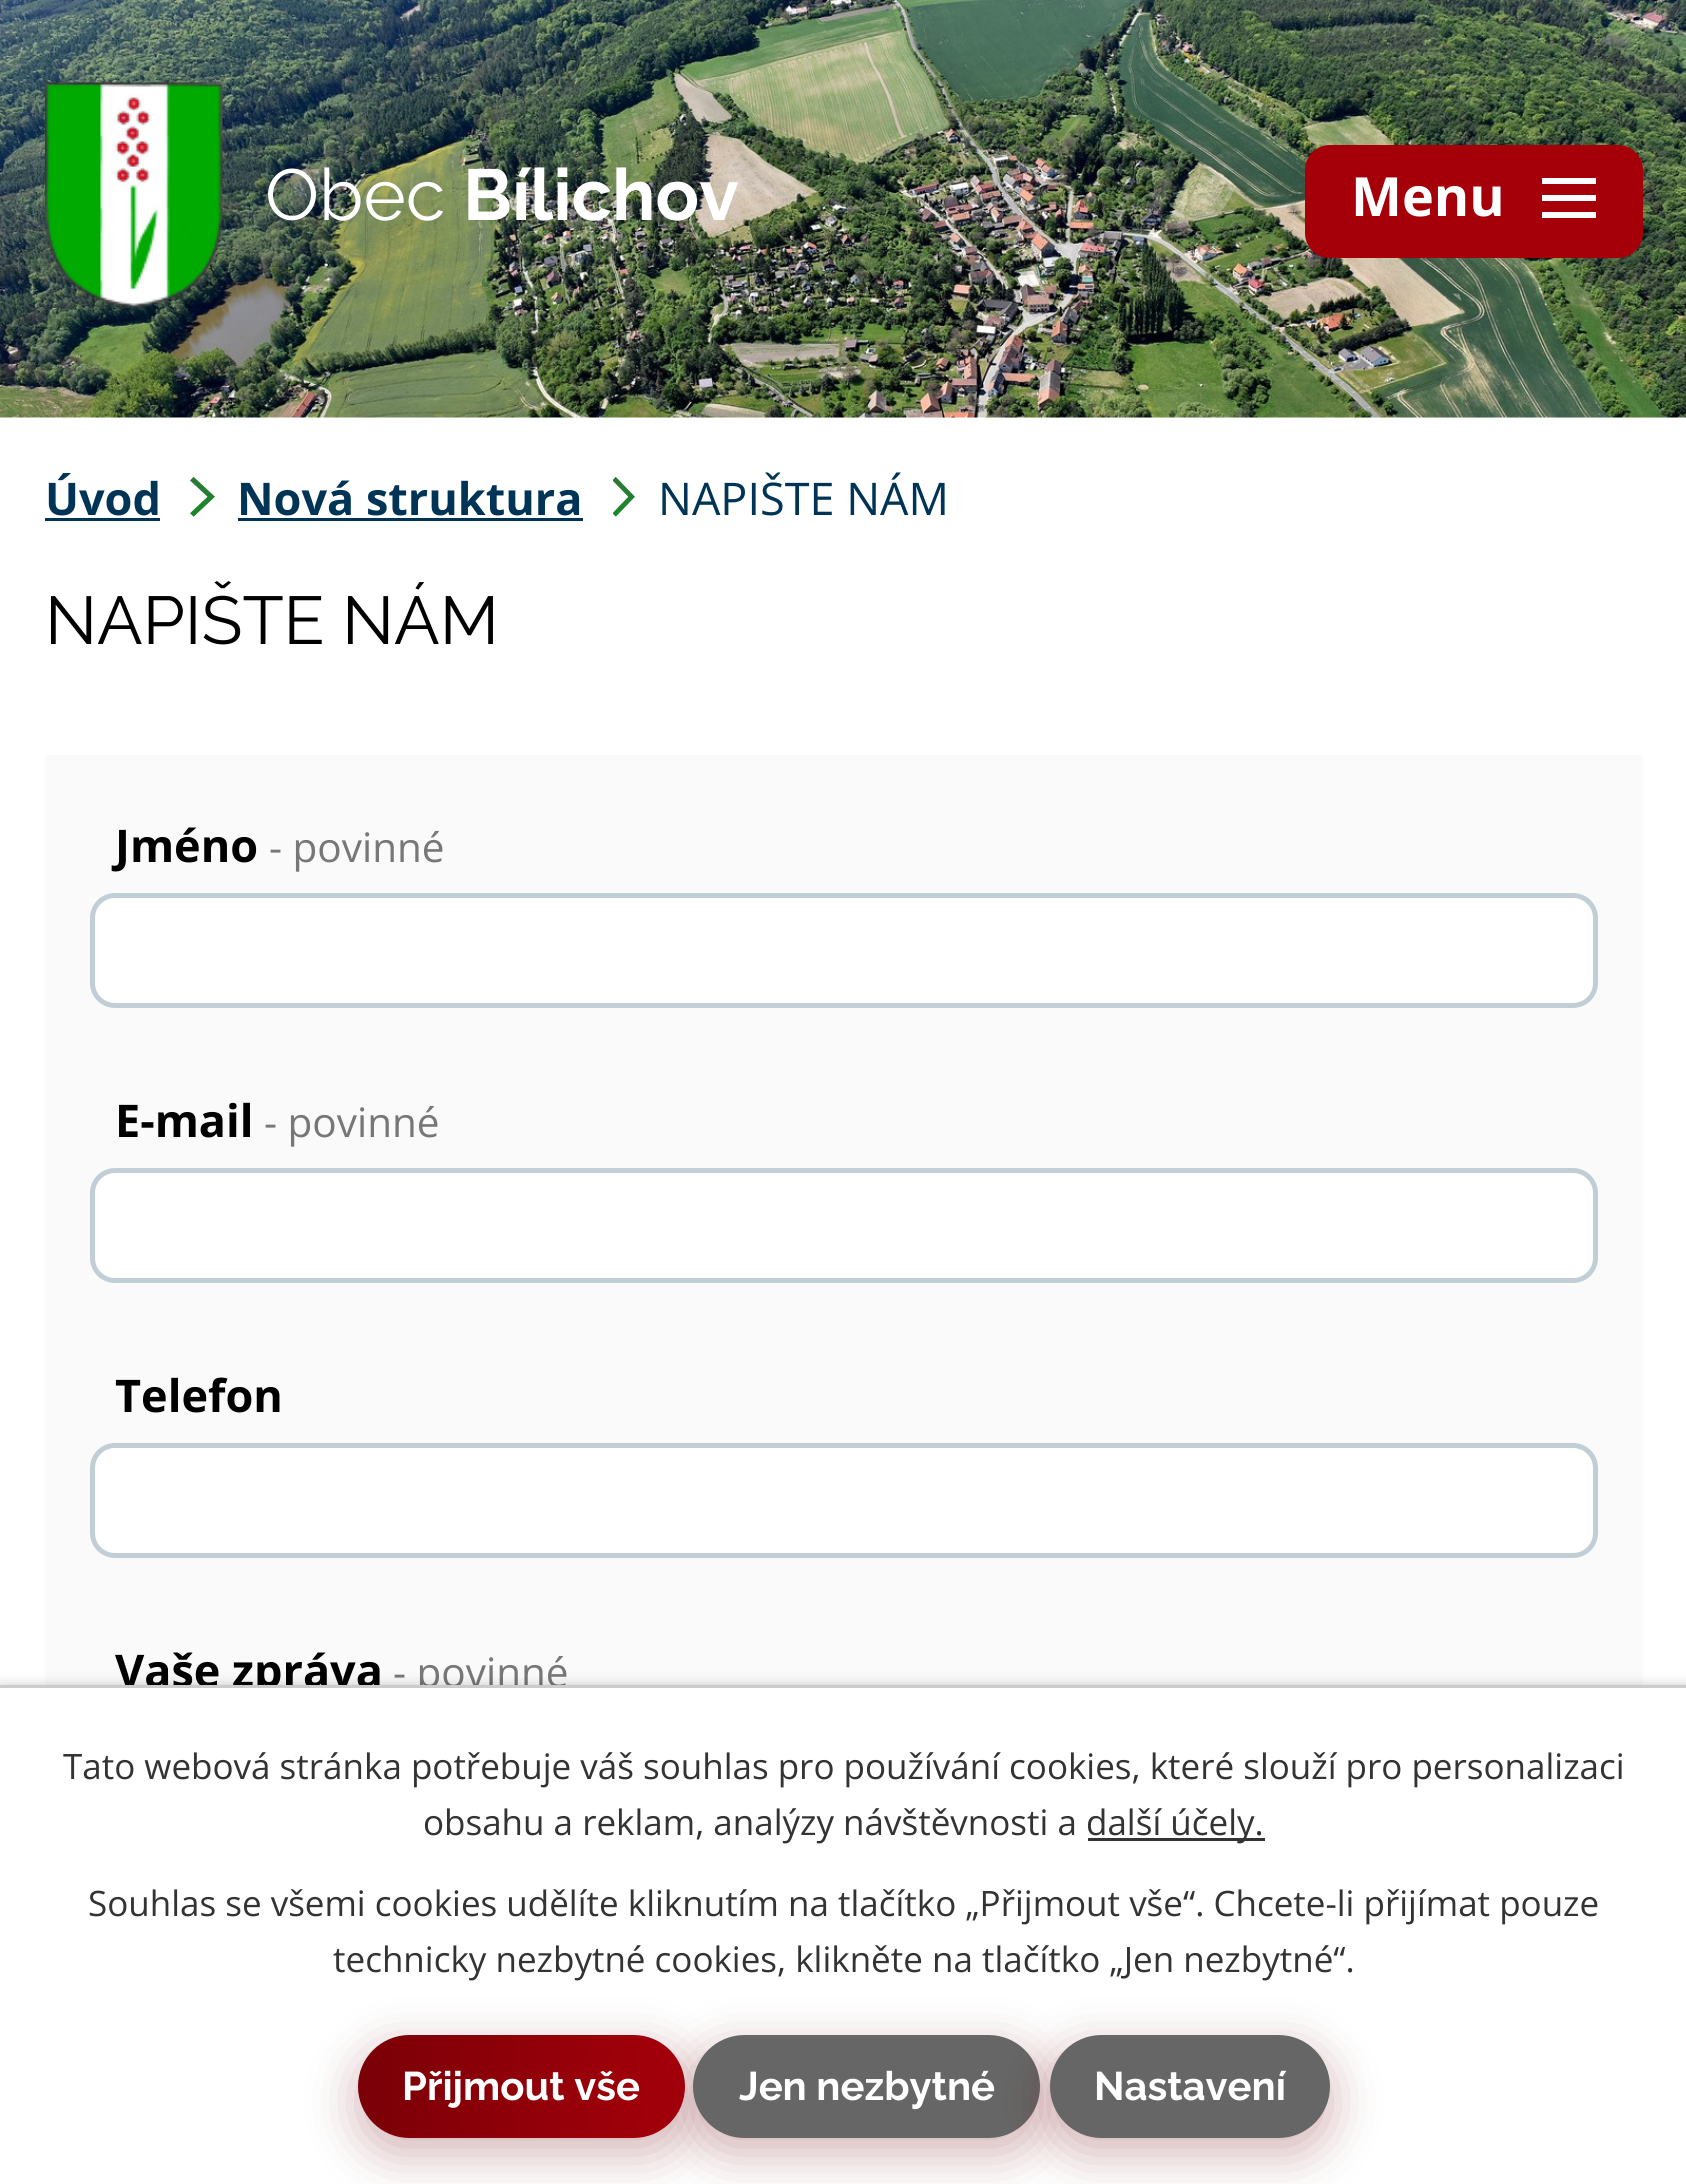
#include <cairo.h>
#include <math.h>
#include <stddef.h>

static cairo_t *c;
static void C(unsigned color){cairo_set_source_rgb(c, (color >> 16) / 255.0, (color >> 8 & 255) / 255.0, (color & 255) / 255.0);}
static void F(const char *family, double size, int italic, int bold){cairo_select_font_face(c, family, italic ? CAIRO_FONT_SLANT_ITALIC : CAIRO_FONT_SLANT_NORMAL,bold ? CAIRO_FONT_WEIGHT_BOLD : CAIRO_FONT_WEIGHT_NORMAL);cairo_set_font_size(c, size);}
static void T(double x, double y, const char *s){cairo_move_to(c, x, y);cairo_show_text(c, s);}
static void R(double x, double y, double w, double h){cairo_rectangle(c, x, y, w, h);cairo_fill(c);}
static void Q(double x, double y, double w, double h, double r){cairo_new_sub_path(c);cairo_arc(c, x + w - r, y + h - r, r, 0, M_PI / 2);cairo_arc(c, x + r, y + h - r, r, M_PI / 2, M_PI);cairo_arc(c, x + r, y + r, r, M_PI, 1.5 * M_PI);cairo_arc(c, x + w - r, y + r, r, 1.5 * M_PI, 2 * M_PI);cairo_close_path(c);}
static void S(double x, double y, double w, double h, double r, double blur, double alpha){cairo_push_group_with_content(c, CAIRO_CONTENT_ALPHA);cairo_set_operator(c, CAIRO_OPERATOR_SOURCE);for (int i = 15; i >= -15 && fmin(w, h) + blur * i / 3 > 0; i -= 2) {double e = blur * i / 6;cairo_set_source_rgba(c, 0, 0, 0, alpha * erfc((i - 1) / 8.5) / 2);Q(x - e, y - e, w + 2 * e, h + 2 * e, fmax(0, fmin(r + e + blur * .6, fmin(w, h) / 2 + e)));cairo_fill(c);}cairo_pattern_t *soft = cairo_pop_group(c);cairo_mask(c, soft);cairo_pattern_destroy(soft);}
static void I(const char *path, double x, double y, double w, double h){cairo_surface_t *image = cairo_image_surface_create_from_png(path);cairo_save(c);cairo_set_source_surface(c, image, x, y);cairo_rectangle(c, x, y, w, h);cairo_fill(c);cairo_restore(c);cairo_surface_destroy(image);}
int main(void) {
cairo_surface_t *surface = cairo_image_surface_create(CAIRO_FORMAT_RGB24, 1686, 2184);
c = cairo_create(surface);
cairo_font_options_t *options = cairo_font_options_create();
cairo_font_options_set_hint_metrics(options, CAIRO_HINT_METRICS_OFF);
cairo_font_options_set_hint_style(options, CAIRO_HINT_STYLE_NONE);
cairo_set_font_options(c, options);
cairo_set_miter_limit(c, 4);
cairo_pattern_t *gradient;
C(0xffffff);
cairo_paint(c);
I("1.png",0,0,1686,418);
I("2.png",45,82,178,226);
F("Raleway",72,0,0);
C(0xffffff);
T(265,220,"Obec");
F("Raleway",72,0,1);
T(463,220,"Bílichov");
C(0xa5000a);
Q(1305,145,338,113,25);
cairo_fill(c);
F("Open Sans",54,0,1);
C(0xffffff);
T(1351,216,"Menu");
cairo_new_path(c);
cairo_move_to(c,1542,218);
cairo_line_to(c,1542,212);
cairo_line_to(c,1596,212);
cairo_line_to(c,1596,218);
cairo_close_path(c);
cairo_move_to(c,1542,178);
cairo_line_to(c,1596,178);
cairo_line_to(c,1596,184);
cairo_line_to(c,1542,184);
cairo_close_path(c);
cairo_move_to(c,1542,201);
cairo_line_to(c,1542,195);
cairo_line_to(c,1596,195);
cairo_line_to(c,1596,201);
cairo_close_path(c);
cairo_fill(c);
F("Open Sans",45,0,1);
C(0x003456);
T(45,515,"Úvod");
R(45,518,115,3);
I("3.png",190,477,25,40);
T(237,515,"Nová struktura");
R(238,518,345,3);
I("4.png",613,477,22,40);
F("Open Sans",45,0,0);
T(658,515,"NAPIŠTE NÁM");
F("Raleway",67.5,0,0);
C(0x000000);
T(45,644,"NAPIŠTE NÁM");
C(0xfafafa);
R(45,755,1598,930);
F("Open Sans",45,0,1);
C(0x000000);
T(115,862,"Jméno");
F("Open Sans",40.5,0,0);
C(0x777777);
T(269,862,"- povinné");
C(0xffffff);
Q(92.5,895.5,1503,110,22.5);
cairo_fill_preserve(c);
C(0xc2ced6);
cairo_set_line_width(c,5);
cairo_stroke(c);
F("Open Sans",45,0,1);
C(0x000000);
T(115,1137,"E-mail");
F("Open Sans",40.5,0,0);
C(0x777777);
T(264,1137,"- povinné");
C(0xffffff);
Q(92.5,1170.5,1503,110,22.5);
cairo_fill_preserve(c);
C(0xc2ced6);
cairo_stroke(c);
F("Open Sans",45,0,1);
C(0x000000);
T(115,1412,"Telefon");
C(0xffffff);
Q(92.5,1445.5,1503,110,22.5);
cairo_fill_preserve(c);
C(0xc2ced6);
cairo_stroke(c);
C(0x000000);
T(115,1687,"Vaše zpráva");
F("Open Sans",40.5,0,0);
C(0x777777);
T(393,1687,"- povinné");
C(0x000000);
S(0,1685,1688,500,0,6,.2);
C(0xffffff);
R(0,1688,1686,496);
C(0xcccccc);
R(0,1685,1686,3);
F("Open Sans",35,0,0);
C(0x333333);
T(63,1779,"Tato webová stránka potřebuje váš souhlas pro používání cookies, které slouží pro personalizaci");
T(423,1835,"obsahu a reklam, analýzy návštěvnosti a");
R(1088,1838,177,3);
T(1086,1835,"další účely.");
T(88,1916,"Souhlas se všemi cookies udělíte kliknutím na tlačítko „Přijmout vše“. Chcete-li přijímat pouze");
T(333,1972,"technicky nezbytné cookies, klikněte na tlačítko „Jen nezbytné“.");
C(0x6d0006);
S(358,2050,327,103,51.5,25,.3);
gradient = cairo_pattern_create_linear(358,2086,685,2086);
cairo_pattern_add_color_stop_rgba(gradient,0,0.478,0,0.027,1);
cairo_pattern_add_color_stop_rgba(gradient,1,0.647,0,0.039,1);
cairo_set_source(c,gradient);
cairo_pattern_destroy(gradient);
Q(358,2035,327,103,51.5);
cairo_fill(c);
F("Raleway",40,0,1);
C(0xffffff);
T(402,2100,"Přijmout vše");
C(0x6d0006);
S(693,2050,347,103,51.5,25,.3);
C(0x666666);
Q(693,2035,347,103,51.5);
cairo_fill(c);
C(0xffffff);
T(739,2100,"Jen nezbytné");
C(0x6d0006);
S(1050,2050,280,103,51.5,25,.3);
C(0x666666);
Q(1050,2035,280,103,51.5);
cairo_fill(c);
C(0xffffff);
T(1094,2100,"Nastavení");
cairo_surface_write_to_png(surface, "o.png");
cairo_font_options_destroy(options);
cairo_destroy(c);
cairo_surface_destroy(surface);
return 0;
}
